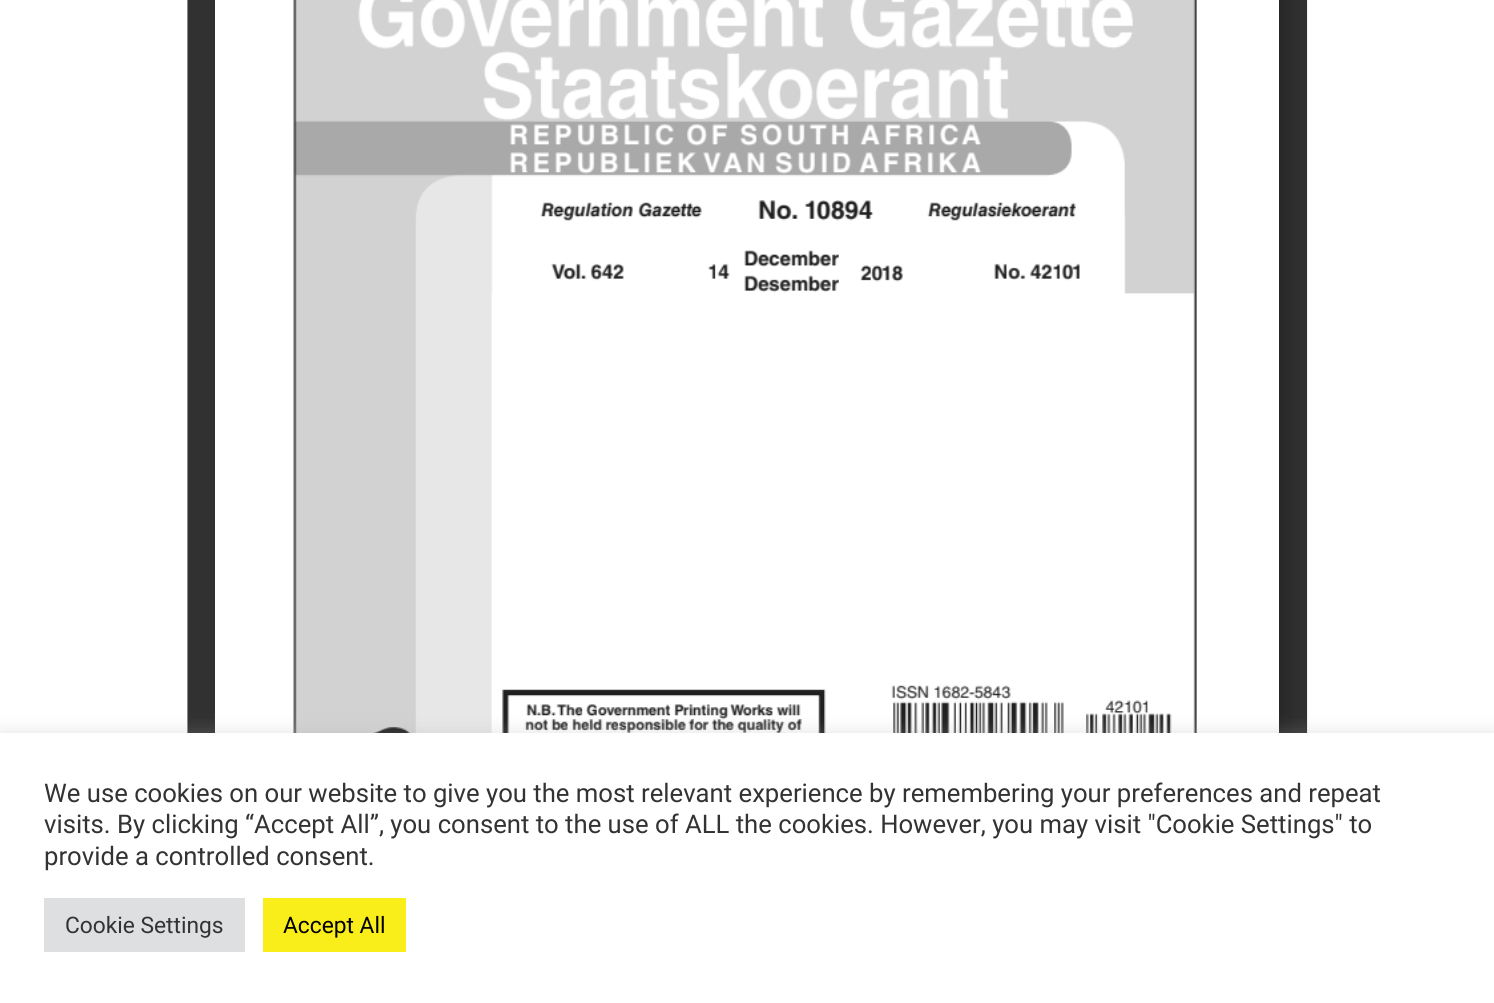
#include <cairo.h>
#include <math.h>
#include <stddef.h>

static cairo_t *c;
static void C(unsigned color){cairo_set_source_rgb(c, (color >> 16) / 255.0, (color >> 8 & 255) / 255.0, (color & 255) / 255.0);}
static void F(const char *family, double size, int italic, int bold){cairo_select_font_face(c, family, italic ? CAIRO_FONT_SLANT_ITALIC : CAIRO_FONT_SLANT_NORMAL,bold ? CAIRO_FONT_WEIGHT_BOLD : CAIRO_FONT_WEIGHT_NORMAL);cairo_set_font_size(c, size);}
static void T(double x, double y, const char *s){cairo_move_to(c, x, y);cairo_show_text(c, s);}
static void R(double x, double y, double w, double h){cairo_rectangle(c, x, y, w, h);cairo_fill(c);}
static void Q(double x, double y, double w, double h, double r){cairo_new_sub_path(c);cairo_arc(c, x + w - r, y + h - r, r, 0, M_PI / 2);cairo_arc(c, x + r, y + h - r, r, M_PI / 2, M_PI);cairo_arc(c, x + r, y + r, r, M_PI, 1.5 * M_PI);cairo_arc(c, x + w - r, y + r, r, 1.5 * M_PI, 2 * M_PI);cairo_close_path(c);}
static void S(double x, double y, double w, double h, double r, double blur, double alpha){cairo_push_group_with_content(c, CAIRO_CONTENT_ALPHA);cairo_set_operator(c, CAIRO_OPERATOR_SOURCE);for (int i = 15; i >= -15 && fmin(w, h) + blur * i / 3 > 0; i -= 2) {double e = blur * i / 6;cairo_set_source_rgba(c, 0, 0, 0, alpha * erfc((i - 1) / 8.5) / 2);Q(x - e, y - e, w + 2 * e, h + 2 * e, fmax(0, fmin(r + e + blur * .6, fmin(w, h) / 2 + e)));cairo_fill(c);}cairo_pattern_t *soft = cairo_pop_group(c);cairo_mask(c, soft);cairo_pattern_destroy(soft);}
static void I(const char *path, double x, double y, double w, double h){cairo_surface_t *image = cairo_image_surface_create_from_png(path);cairo_save(c);cairo_set_source_surface(c, image, x, y);cairo_rectangle(c, x, y, w, h);cairo_fill(c);cairo_restore(c);cairo_surface_destroy(image);}
int main(void) {
cairo_surface_t *surface = cairo_image_surface_create(CAIRO_FORMAT_RGB24, 1494, 1003);
c = cairo_create(surface);
cairo_font_options_t *options = cairo_font_options_create();
cairo_font_options_set_hint_metrics(options, CAIRO_HINT_METRICS_OFF);
cairo_font_options_set_hint_style(options, CAIRO_HINT_STYLE_NONE);
cairo_set_font_options(c, options);
cairo_set_miter_limit(c, 4);
C(0xffffff);
cairo_paint(c);
I("1.png",187,0,1121,733);
C(0xacabab);
S(0,732,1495,271,0,9,.3);
C(0xffffff);
R(0,733,1494,270);
F("Roboto",25.67,0,0);
C(0x333333);
T(44,802,"We use cookies on our website to give you the most relevant experience by remembering your preferences and repeat");
T(44,833,"visits. By clicking “Accept All”, you consent to the use of ALL the cookies. However, you may visit \"Cookie Settings\" to");
T(44,865,"provide a controlled consent.");
C(0xdedfe0);
R(44,898,201,54);
F("Roboto",22.75,0,0);
C(0x333333);
T(65,933,"Cookie Settings");
C(0xf9ed1a);
R(263,898,143,54);
C(0x000000);
T(283,933,"Accept All");
cairo_surface_write_to_png(surface, "o.png");
cairo_font_options_destroy(options);
cairo_destroy(c);
cairo_surface_destroy(surface);
return 0;
}
